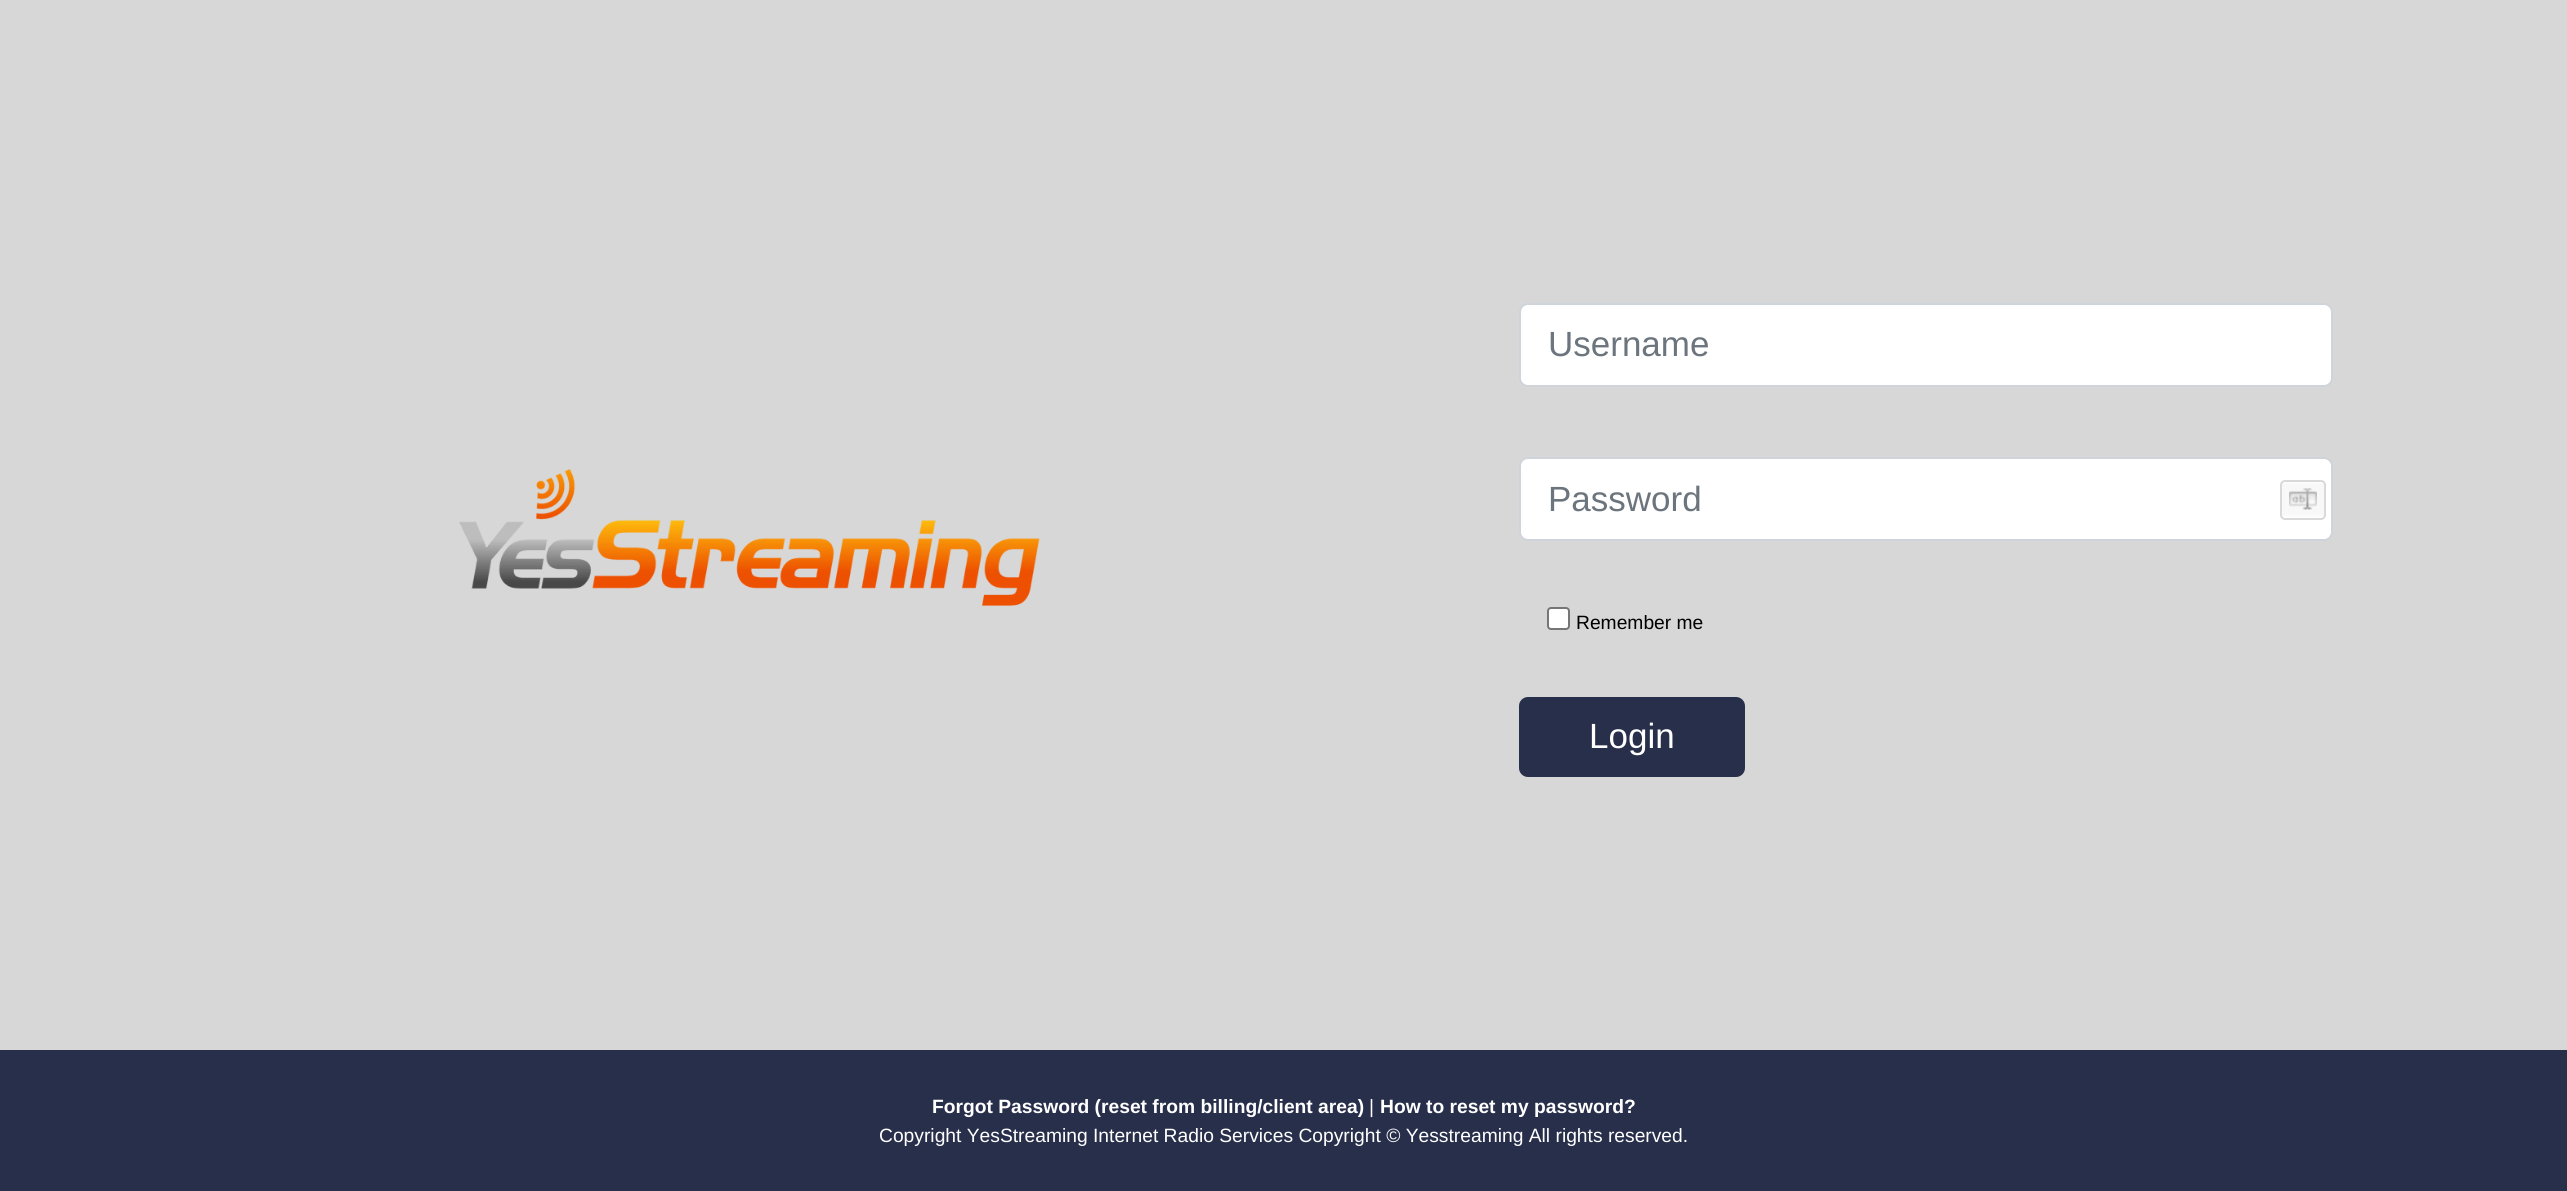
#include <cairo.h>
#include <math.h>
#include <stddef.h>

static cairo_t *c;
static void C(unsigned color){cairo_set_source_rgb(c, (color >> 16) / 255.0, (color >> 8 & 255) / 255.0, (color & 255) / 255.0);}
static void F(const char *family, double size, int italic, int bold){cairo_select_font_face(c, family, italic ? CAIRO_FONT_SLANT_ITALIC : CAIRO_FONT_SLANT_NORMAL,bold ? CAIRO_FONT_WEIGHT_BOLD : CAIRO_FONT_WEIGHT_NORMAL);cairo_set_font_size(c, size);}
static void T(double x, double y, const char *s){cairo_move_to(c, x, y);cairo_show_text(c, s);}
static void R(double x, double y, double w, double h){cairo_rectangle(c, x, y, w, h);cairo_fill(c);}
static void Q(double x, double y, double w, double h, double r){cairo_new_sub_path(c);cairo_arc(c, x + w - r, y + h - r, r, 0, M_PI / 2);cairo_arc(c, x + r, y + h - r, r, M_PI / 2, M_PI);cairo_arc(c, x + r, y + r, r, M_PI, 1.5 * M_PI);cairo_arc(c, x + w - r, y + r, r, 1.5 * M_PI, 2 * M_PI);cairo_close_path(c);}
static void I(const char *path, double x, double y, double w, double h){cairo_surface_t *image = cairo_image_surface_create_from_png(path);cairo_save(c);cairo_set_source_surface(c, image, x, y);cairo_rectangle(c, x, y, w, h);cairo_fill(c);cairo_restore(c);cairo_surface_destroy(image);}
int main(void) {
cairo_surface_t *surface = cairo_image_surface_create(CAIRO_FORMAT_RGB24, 2567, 1191);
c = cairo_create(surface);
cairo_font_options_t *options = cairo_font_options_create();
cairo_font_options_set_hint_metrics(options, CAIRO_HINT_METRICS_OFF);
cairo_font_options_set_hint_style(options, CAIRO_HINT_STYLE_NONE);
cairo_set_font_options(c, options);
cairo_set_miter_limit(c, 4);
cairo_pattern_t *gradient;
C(0xd7d7d7);
cairo_paint(c);
I("1.png",459,469,581,140);
C(0xffffff);
Q(1520,304,812,82,8);
cairo_fill_preserve(c);
C(0xced4da);
cairo_stroke(c);
F("Liberation Sans",35,0,0);
C(0x6c757d);
T(1548,356,"Username");
C(0xffffff);
Q(1520,458,812,82,8);
cairo_fill_preserve(c);
C(0xced4da);
cairo_stroke(c);
C(0x6c757d);
T(1548,511,"Password");
cairo_save(c);
Q(2280,480,46,40,5);
cairo_clip(c);
gradient = cairo_pattern_create_linear(2303,481,2303,518);
cairo_pattern_add_color_stop_rgba(gradient,0,1,1,1,1);
cairo_pattern_add_color_stop_rgba(gradient,.1,0.973,0.973,0.973,1);
cairo_pattern_add_color_stop_rgba(gradient,.9,0.973,0.973,0.973,1);
cairo_pattern_add_color_stop_rgba(gradient,1,1,1,1,1);
cairo_set_source(c,gradient);
cairo_pattern_destroy(gradient);
R(2280,481,46,37);
cairo_restore(c);
Q(2281,481,44,38,4);
C(0xd9d9d9);
cairo_stroke(c);
I("2.png",2289,488,28,22);
C(0xffffff);
Q(1548,608,21,21,3);
cairo_fill_preserve(c);
C(0x767676);
cairo_stroke(c);
F("Liberation Sans",19.25,0,0);
C(0x000000);
T(1576,629,"Remember me");
C(0x282f4b);
Q(1519,697,226,80,9);
cairo_fill(c);
F("Liberation Sans",35,0,0);
C(0xffffff);
T(1589,748,"Login");
C(0x282f4b);
R(0,1050,2567,141);
F("Liberation Sans",19.25,0,1);
C(0xffffff);
T(932,1113,"Forgot Password (reset from billing/client area)");
F("Liberation Sans",19.25,0,0);
T(1369,1113,"|");
F("Liberation Sans",19.25,0,1);
T(1380,1113,"How to reset my password?");
F("Liberation Sans",19.25,0,0);
T(879,1142,"Copyright YesStreaming Internet Radio Services Copyright © Yesstreaming All rights reserved.");
cairo_surface_write_to_png(surface, "o.png");
cairo_font_options_destroy(options);
cairo_destroy(c);
cairo_surface_destroy(surface);
return 0;
}
